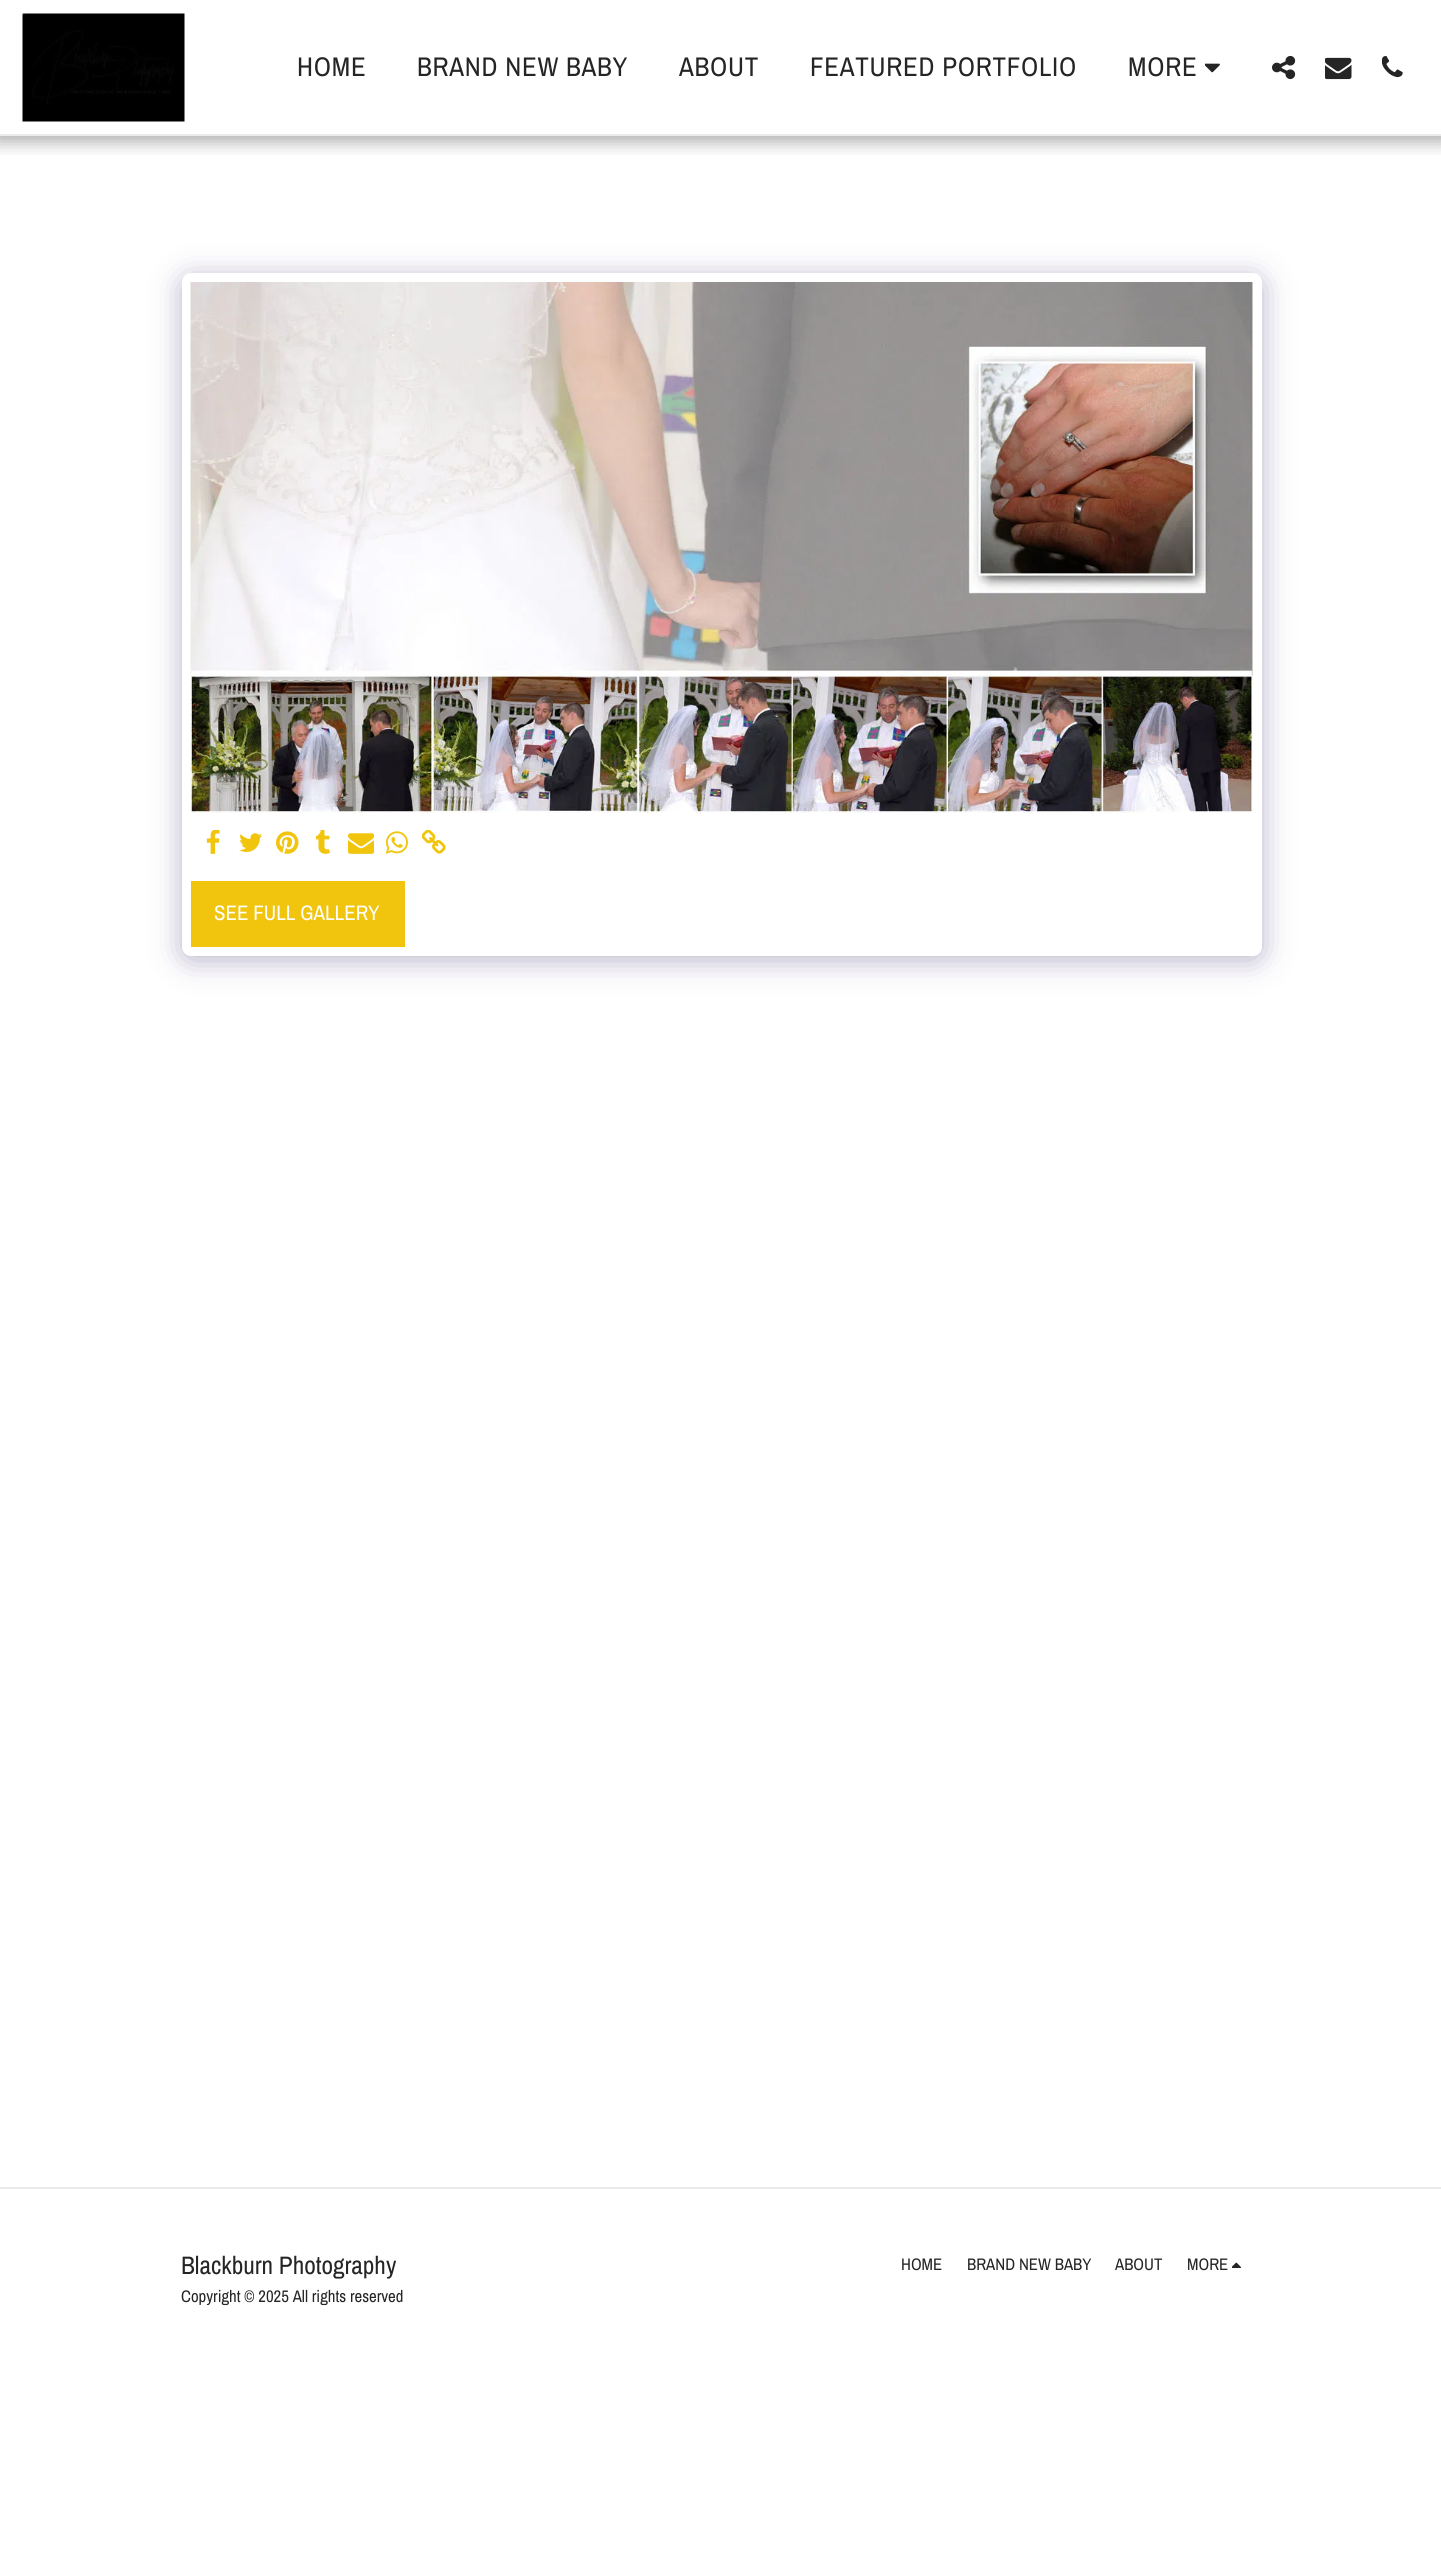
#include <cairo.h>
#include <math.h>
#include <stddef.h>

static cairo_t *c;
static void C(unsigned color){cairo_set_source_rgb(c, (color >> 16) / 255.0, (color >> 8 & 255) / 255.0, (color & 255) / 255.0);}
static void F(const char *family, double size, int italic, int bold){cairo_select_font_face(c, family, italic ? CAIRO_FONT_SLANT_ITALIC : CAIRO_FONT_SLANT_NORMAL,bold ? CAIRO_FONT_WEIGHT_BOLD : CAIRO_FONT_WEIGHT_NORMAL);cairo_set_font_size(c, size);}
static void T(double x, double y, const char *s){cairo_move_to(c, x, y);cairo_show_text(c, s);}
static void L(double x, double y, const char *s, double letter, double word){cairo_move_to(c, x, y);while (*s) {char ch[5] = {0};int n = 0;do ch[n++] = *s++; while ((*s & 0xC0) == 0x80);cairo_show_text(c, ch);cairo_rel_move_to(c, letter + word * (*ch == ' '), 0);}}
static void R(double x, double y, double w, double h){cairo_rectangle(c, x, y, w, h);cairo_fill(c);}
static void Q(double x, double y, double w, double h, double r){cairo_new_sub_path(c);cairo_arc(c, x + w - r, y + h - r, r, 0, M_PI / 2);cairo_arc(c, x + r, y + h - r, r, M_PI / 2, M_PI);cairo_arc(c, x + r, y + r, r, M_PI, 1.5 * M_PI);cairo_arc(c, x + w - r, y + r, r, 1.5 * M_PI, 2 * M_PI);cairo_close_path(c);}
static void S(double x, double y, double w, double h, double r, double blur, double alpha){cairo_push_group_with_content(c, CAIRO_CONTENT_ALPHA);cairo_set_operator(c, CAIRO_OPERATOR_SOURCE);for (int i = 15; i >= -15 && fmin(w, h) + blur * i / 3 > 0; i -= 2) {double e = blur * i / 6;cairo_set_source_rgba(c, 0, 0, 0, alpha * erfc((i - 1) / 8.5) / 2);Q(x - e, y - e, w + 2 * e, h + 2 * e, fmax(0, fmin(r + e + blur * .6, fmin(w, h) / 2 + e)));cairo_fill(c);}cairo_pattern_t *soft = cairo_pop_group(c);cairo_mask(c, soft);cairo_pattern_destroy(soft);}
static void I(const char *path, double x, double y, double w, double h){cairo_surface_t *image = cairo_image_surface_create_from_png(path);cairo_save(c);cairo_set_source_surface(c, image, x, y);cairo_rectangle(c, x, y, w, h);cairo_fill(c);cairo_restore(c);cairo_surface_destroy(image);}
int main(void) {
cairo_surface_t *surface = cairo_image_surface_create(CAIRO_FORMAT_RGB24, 1441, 2565);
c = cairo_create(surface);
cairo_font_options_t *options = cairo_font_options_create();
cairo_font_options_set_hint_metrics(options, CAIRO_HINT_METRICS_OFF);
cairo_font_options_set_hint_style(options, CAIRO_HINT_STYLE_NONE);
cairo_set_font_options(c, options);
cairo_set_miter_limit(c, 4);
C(0xffffff);
cairo_paint(c);
cairo_save(c);
cairo_rectangle(c,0,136,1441,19);
cairo_clip(c);
C(0x000000);
S(-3,0,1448,141,0,9,.35);
cairo_restore(c);
C(0xebebeb);
R(0,134,1441,2);
I("1.png",22,13,163,109);
F("Archivo Narrow",27,0,0);
C(0x252525);
L(297,76,"HOME",.75,0);
L(417,76,"BRAND NEW BABY",.75,0);
L(679,76,"ABOUT",.75,0);
L(810,76,"FEATURED PORTFOLIO",.75,0);
L(1128,76,"MORE",.75,0);
I("2.png",1205,63,15,10);
I("3.png",1272,55,24,25);
I("4.png",1325,57,27,23);
I("5.png",1382,56,21,22);
C(0x4d3f7a);
S(182,278,1080,682,9,15,.4);
C(0xffffff);
Q(182,273,1080,683,9);
cairo_fill(c);
I("6.png",190,282,1063,531);
I("7.png",206,830,14,24);
I("8.png",239,833,24,19);
I("9.png",276,831,23,23);
I("10.png",316,830,14,24);
I("11.png",348,833,26,21);
I("12.png",386,831,22,23);
I("13.png",422,830,24,24);
C(0xf1c50e);
R(191,881,214,66);
F("Archivo Narrow",21,0,0);
C(0xffffff);
T(214,920,"SEE FULL GALLERY");
C(0xebebeb);
R(0,2187,1441,2);
F("Archivo Narrow",25.25,0,0);
C(0x252525);
T(181,2274,"Blackburn Photography");
F("Archivo Narrow",16.75,0,0);
T(181,2302,"Copyright © 2025 All rights reserved");
T(901,2270,"HOME");
T(967,2270,"BRAND NEW BABY");
T(1115,2270,"ABOUT");
T(1187,2270,"MORE");
I("14.png",1232,2262,9,6);
cairo_surface_write_to_png(surface, "o.png");
cairo_font_options_destroy(options);
cairo_destroy(c);
cairo_surface_destroy(surface);
return 0;
}
